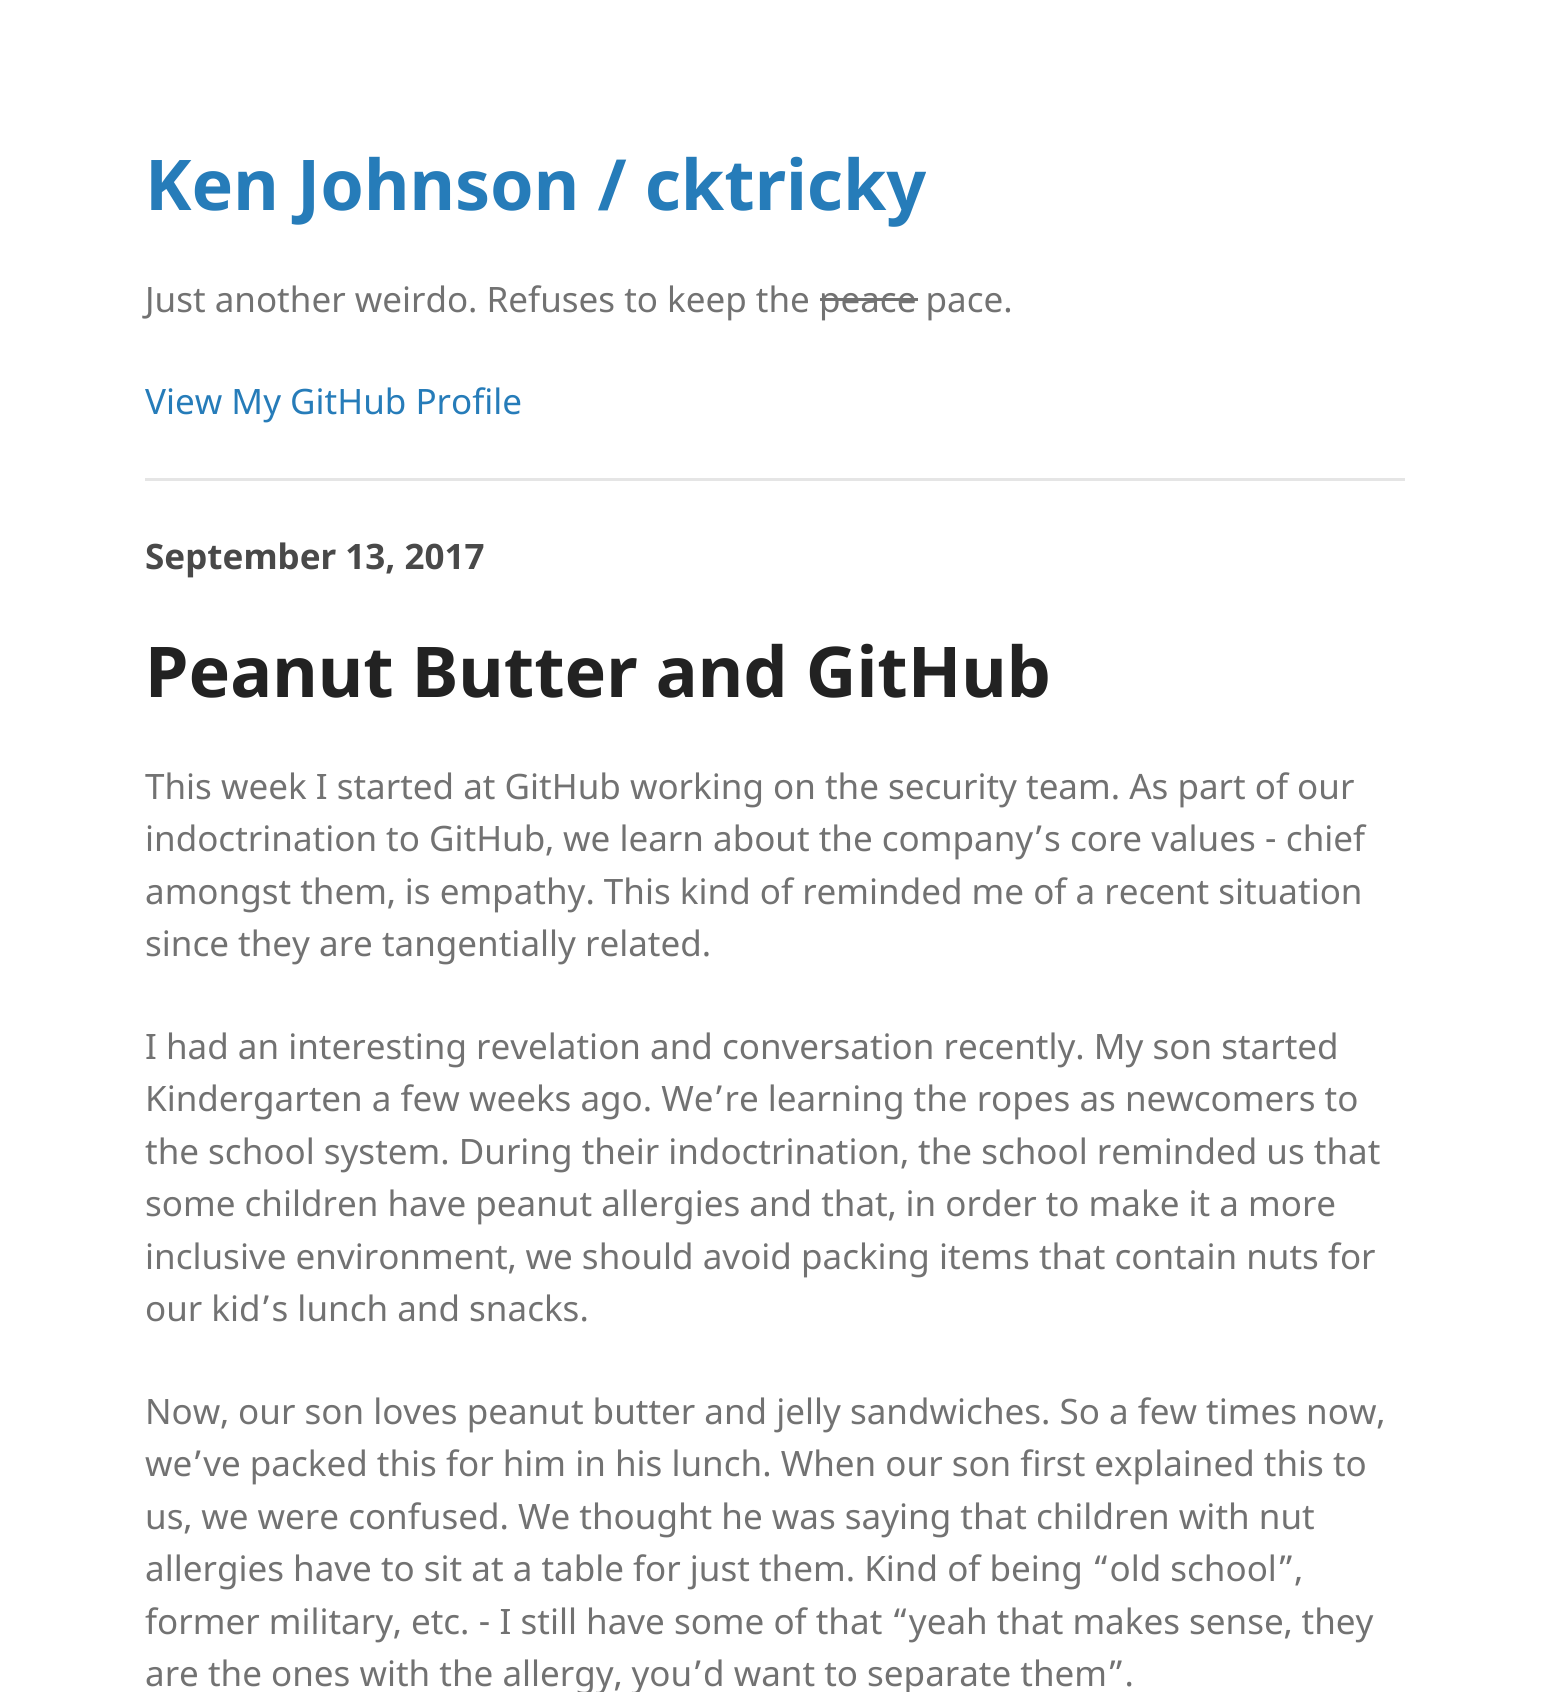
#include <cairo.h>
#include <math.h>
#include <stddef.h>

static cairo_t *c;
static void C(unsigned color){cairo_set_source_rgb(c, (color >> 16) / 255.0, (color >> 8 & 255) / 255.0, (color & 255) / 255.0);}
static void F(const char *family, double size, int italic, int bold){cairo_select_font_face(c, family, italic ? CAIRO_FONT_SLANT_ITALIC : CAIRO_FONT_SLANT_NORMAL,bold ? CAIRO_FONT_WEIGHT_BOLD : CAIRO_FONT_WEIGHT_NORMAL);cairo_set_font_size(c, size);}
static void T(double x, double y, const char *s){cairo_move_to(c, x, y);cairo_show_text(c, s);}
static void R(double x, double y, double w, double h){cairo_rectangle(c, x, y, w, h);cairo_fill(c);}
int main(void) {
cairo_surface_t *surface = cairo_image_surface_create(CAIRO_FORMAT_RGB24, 1549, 1692);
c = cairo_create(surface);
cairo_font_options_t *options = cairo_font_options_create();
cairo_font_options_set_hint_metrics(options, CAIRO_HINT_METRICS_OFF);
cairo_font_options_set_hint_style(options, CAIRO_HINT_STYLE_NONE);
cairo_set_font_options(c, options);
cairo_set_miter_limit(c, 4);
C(0xffffff);
cairo_paint(c);
F("Noto Sans",70,0,1);
C(0x267cb9);
T(145,210,"Ken Johnson / cktricky");
F("Noto Sans",35,0,0);
C(0x727272);
T(145,312,"Just another weirdo. Refuses to keep the peace pace.");
R(820,298,98,3);
C(0x267cb9);
T(145,414,"View My GitHub Profile");
C(0xe5e5e5);
R(145,478,1260,3);
F("Noto Sans",35,0,1);
C(0x494949);
T(145,569,"September 13, 2017");
F("Noto Sans",70,0,1);
C(0x222222);
T(145,697,"Peanut Butter and GitHub");
F("Noto Sans",35,0,0);
C(0x727272);
T(145,799,"This week I started at GitHub working on the security team. As part of our");
T(145,851,"indoctrination to GitHub, we learn about the company’s core values - chief");
T(145,904,"amongst them, is empathy. This kind of reminded me of a recent situation");
T(145,956,"since they are tangentially related.");
T(145,1059,"I had an interesting revelation and conversation recently. My son started");
T(145,1111,"Kindergarten a few weeks ago. We’re learning the ropes as newcomers to");
T(145,1164,"the school system. During their indoctrination, the school reminded us that");
T(145,1216,"some children have peanut allergies and that, in order to make it a more");
T(145,1269,"inclusive environment, we should avoid packing items that contain nuts for");
T(145,1321,"our kid’s lunch and snacks.");
T(145,1424,"Now, our son loves peanut butter and jelly sandwiches. So a few times now,");
T(145,1476,"we’ve packed this for him in his lunch. When our son first explained this to");
T(145,1529,"us, we were confused. We thought he was saying that children with nut");
T(145,1581,"allergies have to sit at a table for just them. Kind of being “old school”,");
T(145,1634,"former military, etc. - I still have some of that “yeah that makes sense, they");
T(145,1686,"are the ones with the allergy, you’d want to separate them”.");
cairo_surface_write_to_png(surface, "o.png");
cairo_font_options_destroy(options);
cairo_destroy(c);
cairo_surface_destroy(surface);
return 0;
}
